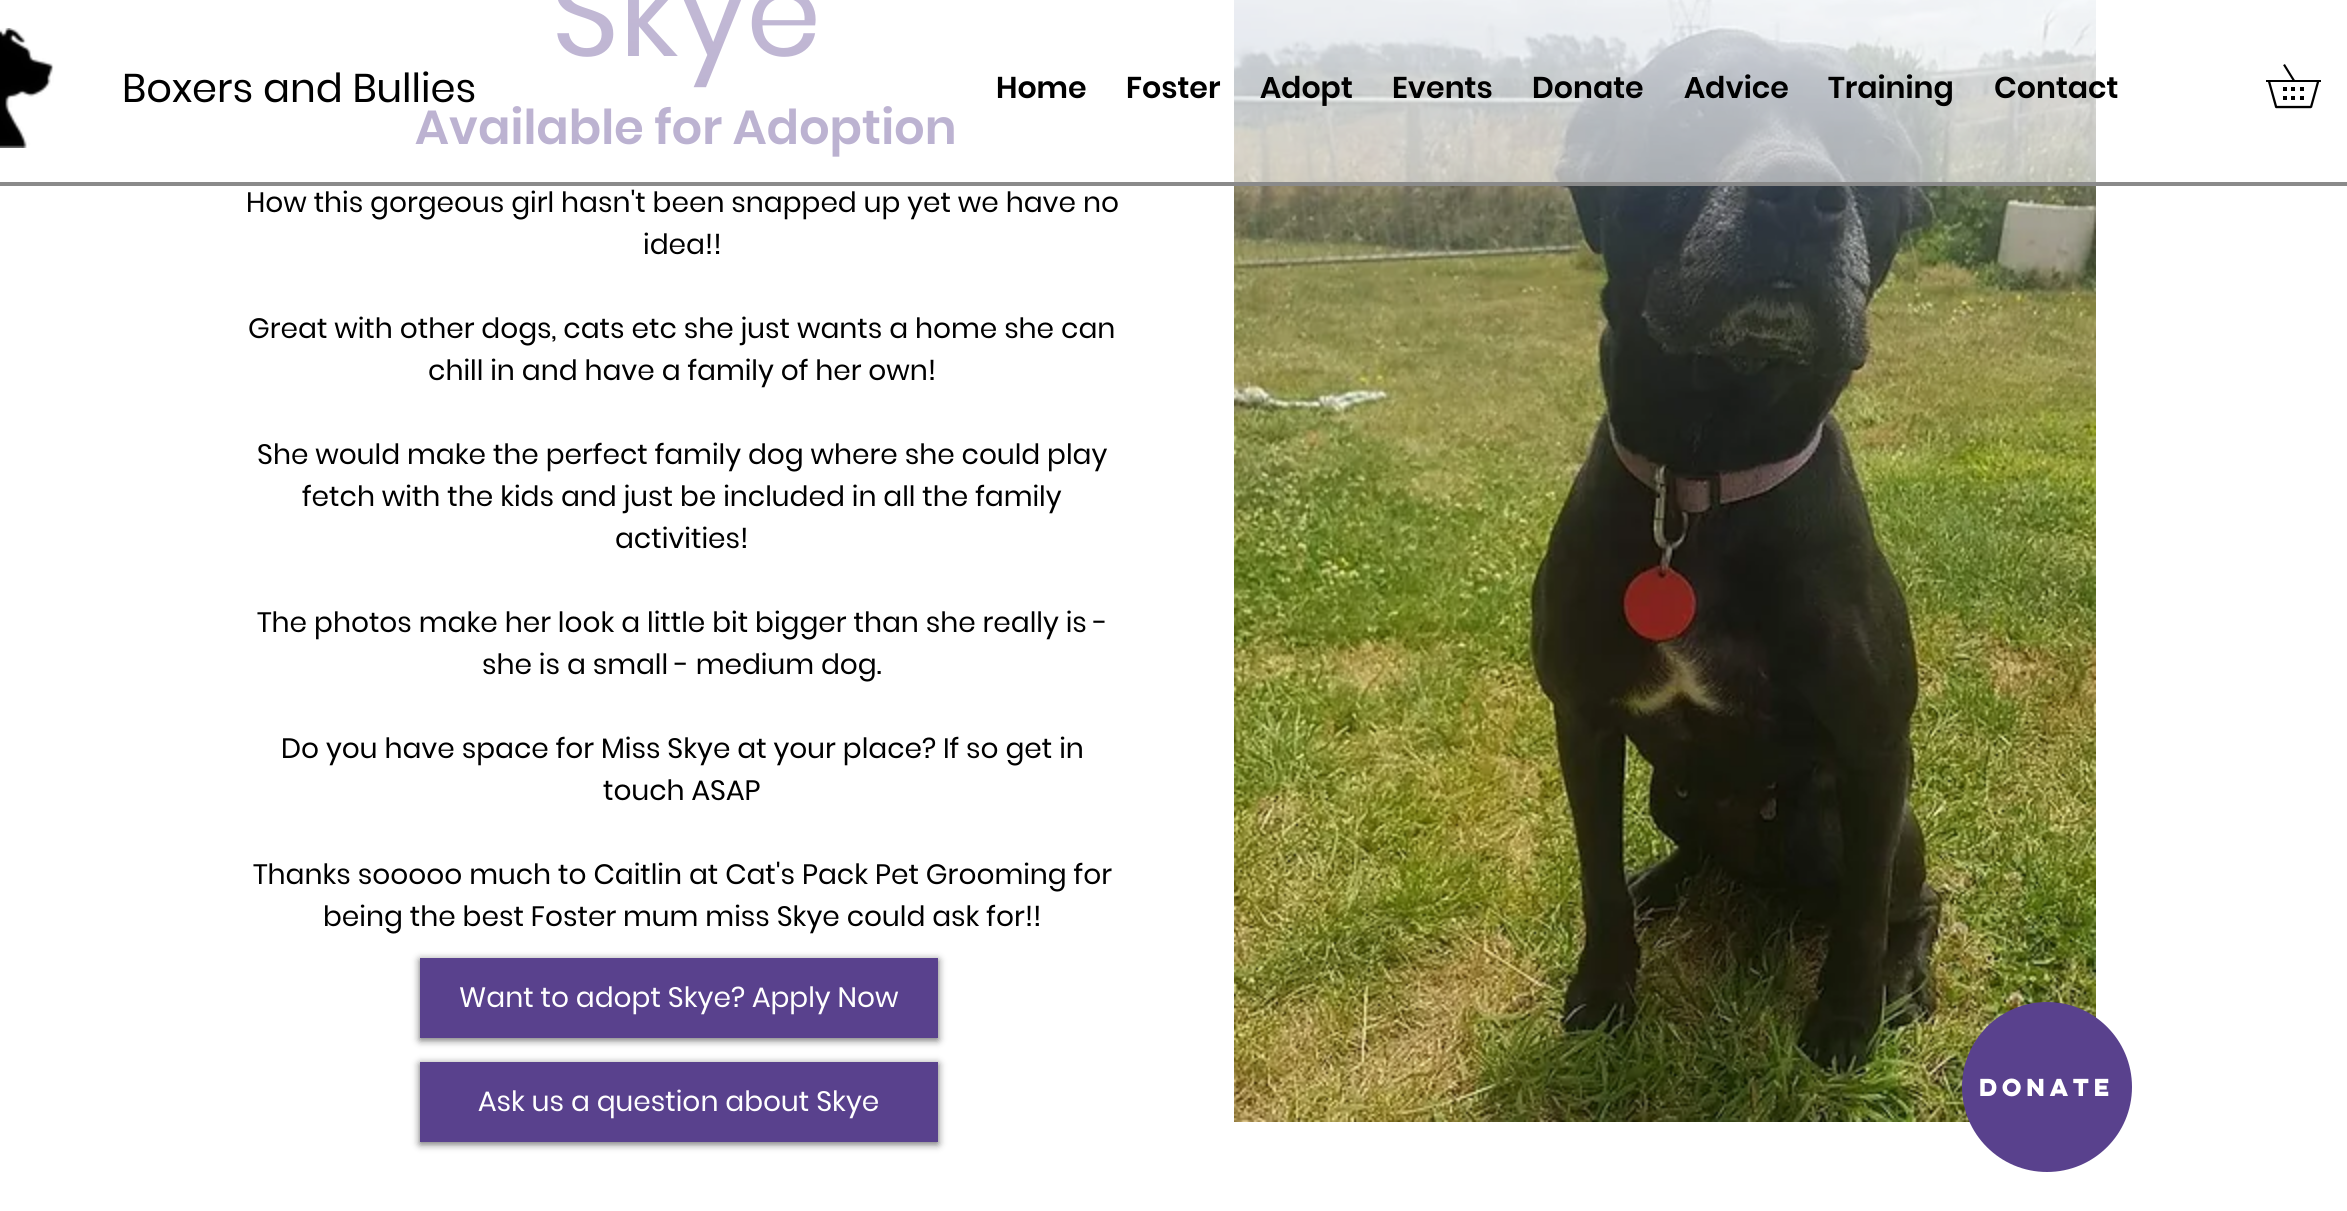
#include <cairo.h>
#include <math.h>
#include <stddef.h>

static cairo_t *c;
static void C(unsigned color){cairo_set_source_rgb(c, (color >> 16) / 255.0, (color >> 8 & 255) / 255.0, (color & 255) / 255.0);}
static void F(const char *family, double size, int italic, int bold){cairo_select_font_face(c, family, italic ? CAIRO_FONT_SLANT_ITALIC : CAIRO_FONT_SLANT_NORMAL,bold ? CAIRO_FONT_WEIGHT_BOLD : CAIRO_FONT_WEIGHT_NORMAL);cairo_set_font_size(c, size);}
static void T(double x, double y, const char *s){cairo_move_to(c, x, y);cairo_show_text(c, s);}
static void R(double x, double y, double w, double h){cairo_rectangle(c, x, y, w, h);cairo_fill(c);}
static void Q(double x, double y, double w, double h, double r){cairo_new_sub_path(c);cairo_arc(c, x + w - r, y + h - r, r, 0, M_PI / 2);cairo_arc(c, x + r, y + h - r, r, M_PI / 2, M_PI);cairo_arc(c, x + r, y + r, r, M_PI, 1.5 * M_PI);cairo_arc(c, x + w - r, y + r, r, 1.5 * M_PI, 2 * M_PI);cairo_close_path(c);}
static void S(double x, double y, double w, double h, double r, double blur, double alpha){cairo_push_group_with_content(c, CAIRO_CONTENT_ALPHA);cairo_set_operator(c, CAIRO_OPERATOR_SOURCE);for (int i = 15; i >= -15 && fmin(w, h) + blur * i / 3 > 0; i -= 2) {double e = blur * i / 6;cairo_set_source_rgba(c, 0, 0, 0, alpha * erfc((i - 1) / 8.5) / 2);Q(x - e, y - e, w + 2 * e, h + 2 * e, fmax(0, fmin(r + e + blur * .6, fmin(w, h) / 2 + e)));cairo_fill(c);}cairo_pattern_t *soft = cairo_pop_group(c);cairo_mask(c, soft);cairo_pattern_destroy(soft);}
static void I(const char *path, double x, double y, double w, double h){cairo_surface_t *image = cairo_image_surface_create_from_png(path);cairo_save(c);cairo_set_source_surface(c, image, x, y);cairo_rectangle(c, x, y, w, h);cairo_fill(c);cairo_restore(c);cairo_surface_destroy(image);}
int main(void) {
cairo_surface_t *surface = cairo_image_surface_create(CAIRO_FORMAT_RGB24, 2347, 1211);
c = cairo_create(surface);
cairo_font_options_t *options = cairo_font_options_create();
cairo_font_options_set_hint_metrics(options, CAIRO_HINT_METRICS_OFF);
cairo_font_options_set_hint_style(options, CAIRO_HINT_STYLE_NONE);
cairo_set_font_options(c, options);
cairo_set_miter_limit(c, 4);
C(0xffffff);
cairo_paint(c);
F("Poppins",120,0,0);
C(0x59418d);
T(551,56,"Skye");
F("Poppins SemiBold",48,0,0);
T(415,144,"Available for Adoption");
F("Poppins",28,0,0);
C(0x000000);
T(246,212,"How this gorgeous girl hasn't been snapped up yet we have no");
T(643,254,"idea!!");
T(248,338,"Great with other dogs, cats etc she just wants a home she can");
T(428,380,"chill in and have a family of her own!");
T(257,464,"She would make the perfect family dog where she could play");
T(302,506,"fetch with the kids and just be included in all the family");
T(615,548,"activities!");
T(257,632,"The photos make her look a little bit bigger than she really is -");
T(482,674,"she is a small - medium dog.");
T(281,758,"Do you have space for Miss Skye at your place? If so get in");
T(603,800,"touch ASAP");
T(253,884,"Thanks sooooo much to Caitlin at Cat's Pack Pet Grooming for");
T(323,926,"being the best Foster mum miss Skye could ask for!!");
C(0x000000);
S(420,960,518,80,0,4,.6);
C(0x59418d);
R(420,958,518,80);
C(0xffffff);
T(459,1007,"Want to adopt Skye? Apply Now");
C(0x000000);
S(420,1064,518,80,0,4,.6);
C(0x59418d);
R(420,1062,518,80);
C(0xffffff);
T(478,1111,"Ask us a question about Skye");
I("1.png",1234,0,862,1122);
cairo_set_source_rgba(c,1,1,1,0.5);
R(415,0,1681,182);
I("2.png",416,0,1680,182);
C(0x8a8a8a);
R(0,182,2347,4);
I("3.png",0,28,54,120);
F("Poppins",40,0,0);
C(0x000000);
T(122,102,"Boxers and Bullies");
F("Poppins SemiBold",30,0,0);
T(996,98,"Home");
T(1126,98,"Foster");
T(1260,98,"Adopt");
T(1392,98,"Events");
T(1532,98,"Donate");
T(1684,98,"Advice");
T(1828,98,"Training");
T(1994,98,"Contact");
I("4.png",2266,64,55,45);
C(0x59418d);
cairo_arc(c,2047,1087,85,0,2 * M_PI);
cairo_fill(c);
F("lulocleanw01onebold",22,0,1);
C(0xffffff);
T(1979,1096,"Donate");
cairo_surface_write_to_png(surface, "o.png");
cairo_font_options_destroy(options);
cairo_destroy(c);
cairo_surface_destroy(surface);
return 0;
}
